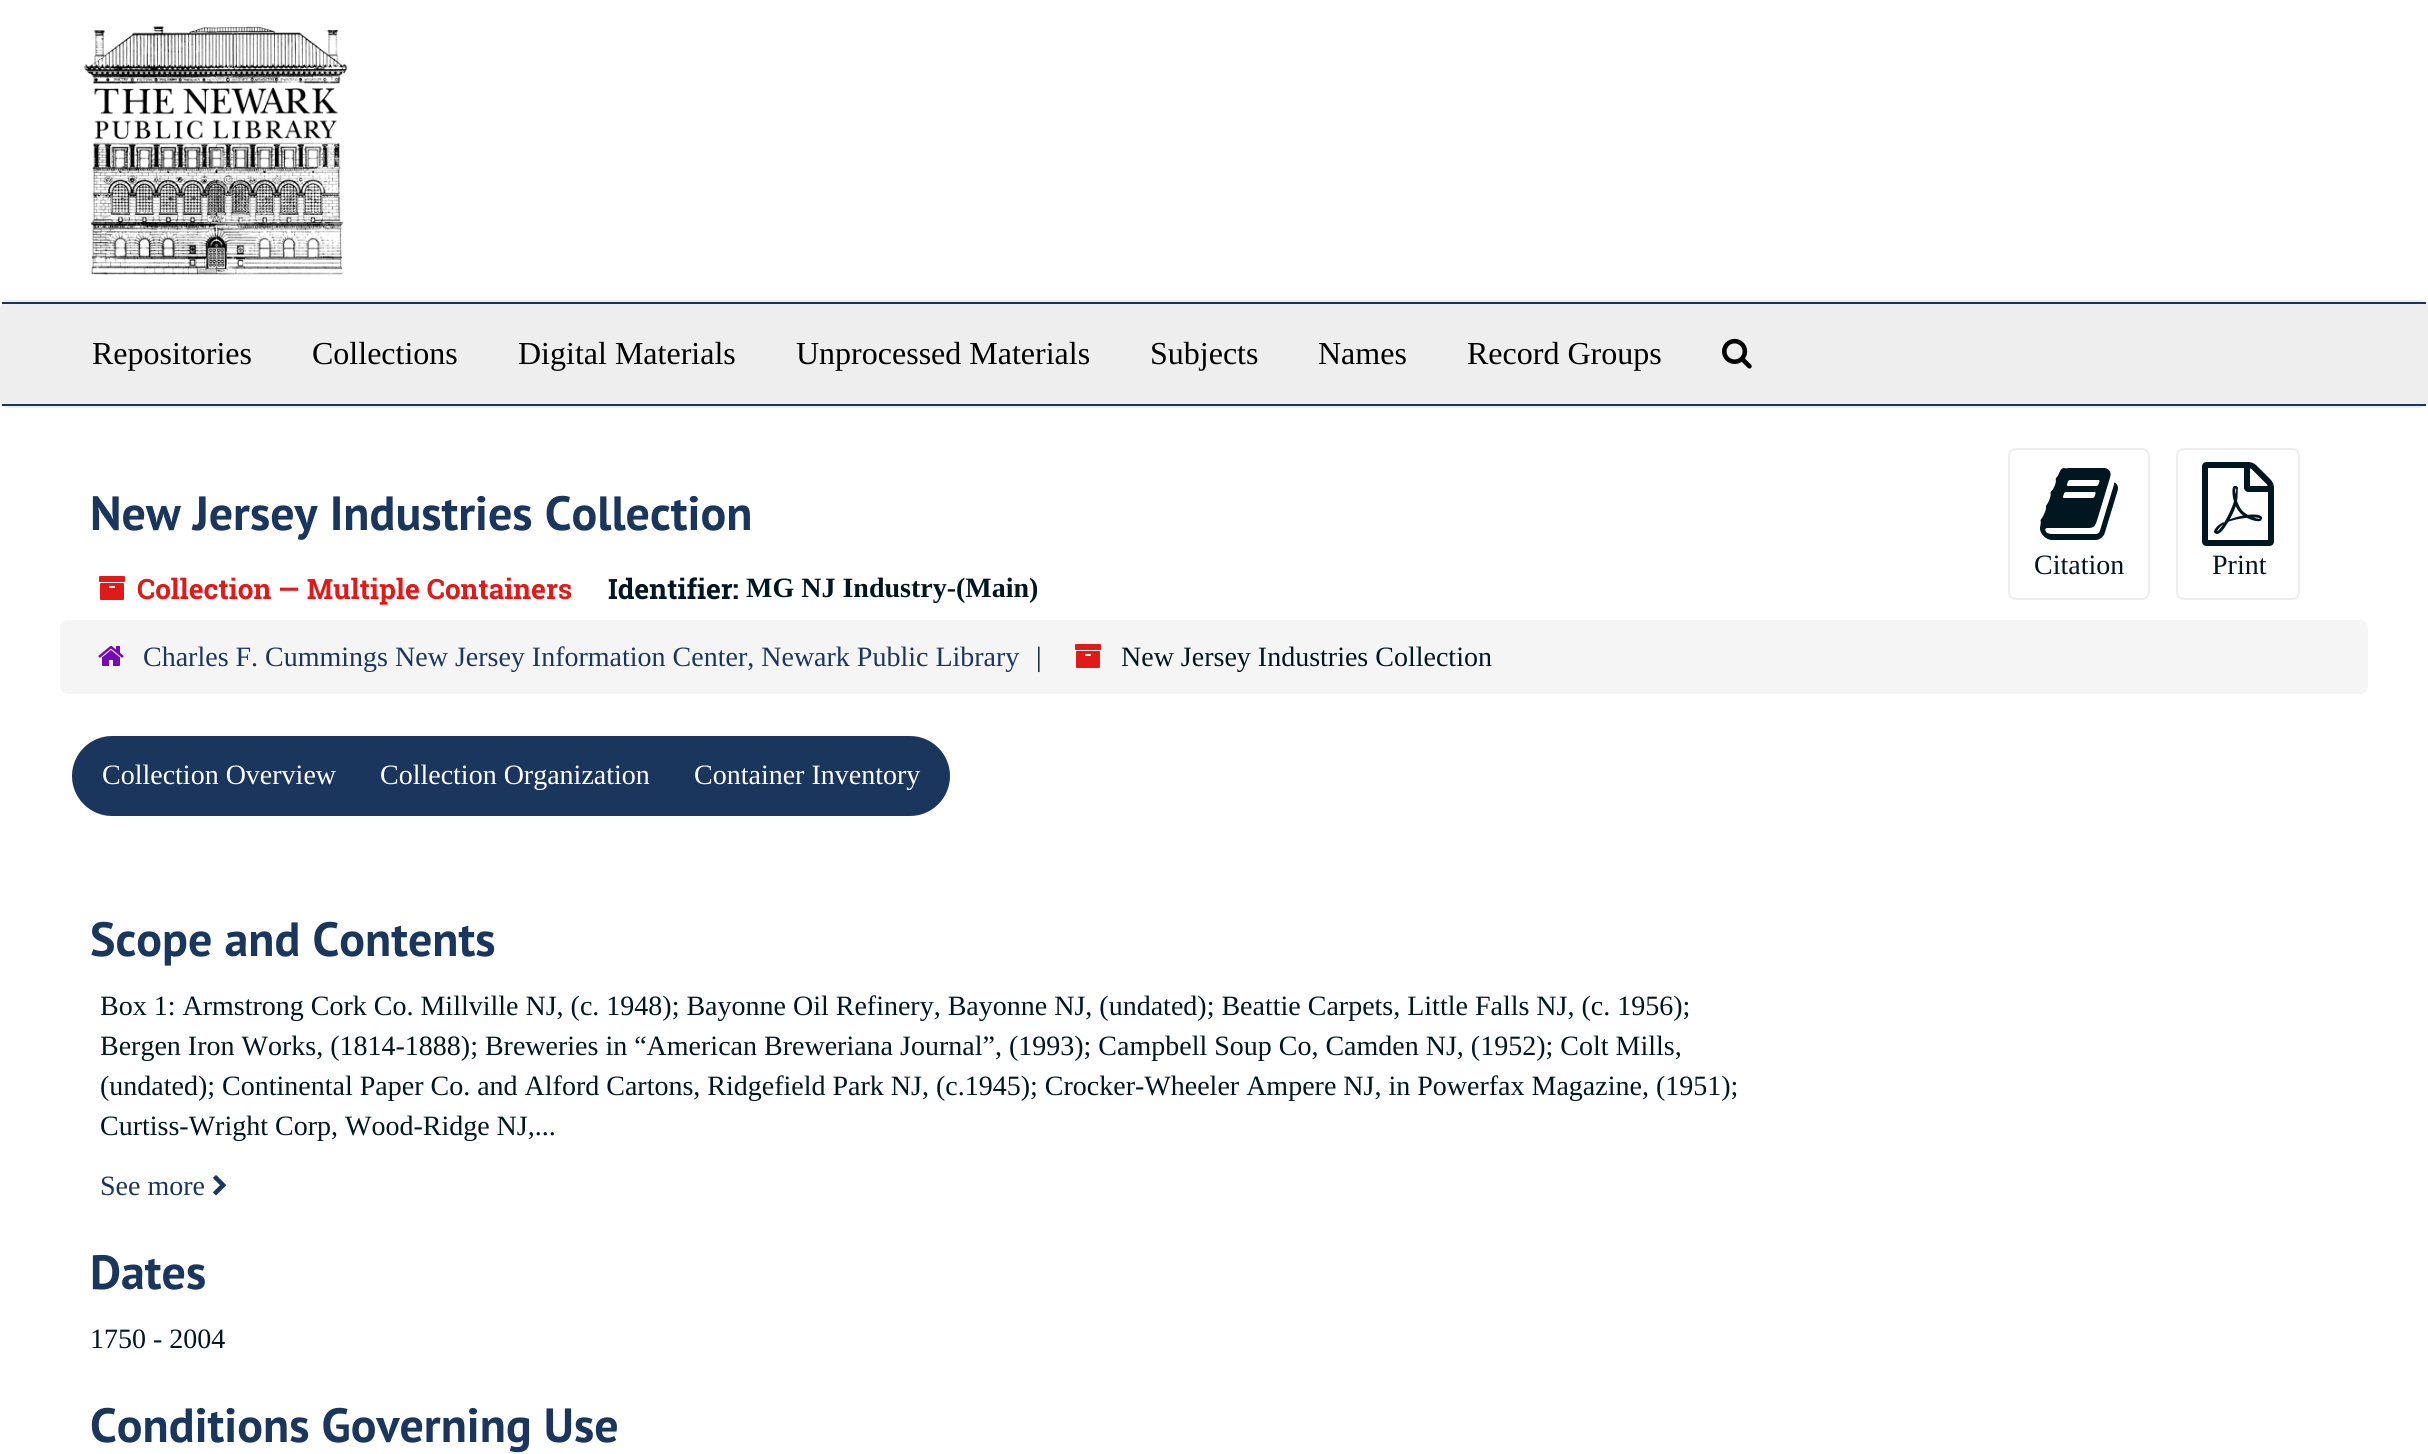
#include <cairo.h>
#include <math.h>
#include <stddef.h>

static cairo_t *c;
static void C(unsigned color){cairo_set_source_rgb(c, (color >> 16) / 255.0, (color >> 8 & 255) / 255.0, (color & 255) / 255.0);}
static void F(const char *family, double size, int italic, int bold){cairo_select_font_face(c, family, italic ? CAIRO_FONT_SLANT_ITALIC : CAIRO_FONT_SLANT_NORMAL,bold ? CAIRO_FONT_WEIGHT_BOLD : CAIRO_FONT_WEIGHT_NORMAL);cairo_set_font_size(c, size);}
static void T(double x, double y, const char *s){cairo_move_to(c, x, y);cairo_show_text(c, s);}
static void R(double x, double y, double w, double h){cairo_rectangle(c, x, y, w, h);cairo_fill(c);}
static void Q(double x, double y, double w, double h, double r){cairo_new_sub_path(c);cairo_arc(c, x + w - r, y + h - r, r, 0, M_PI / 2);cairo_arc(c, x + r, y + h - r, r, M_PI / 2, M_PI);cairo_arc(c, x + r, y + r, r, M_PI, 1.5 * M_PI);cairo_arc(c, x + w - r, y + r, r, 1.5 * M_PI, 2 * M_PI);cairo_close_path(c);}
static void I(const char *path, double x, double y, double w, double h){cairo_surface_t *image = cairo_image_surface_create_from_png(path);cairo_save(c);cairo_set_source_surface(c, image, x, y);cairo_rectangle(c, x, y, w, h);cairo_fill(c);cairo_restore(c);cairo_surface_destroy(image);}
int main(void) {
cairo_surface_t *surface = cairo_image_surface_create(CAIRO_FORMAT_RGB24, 2428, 1454);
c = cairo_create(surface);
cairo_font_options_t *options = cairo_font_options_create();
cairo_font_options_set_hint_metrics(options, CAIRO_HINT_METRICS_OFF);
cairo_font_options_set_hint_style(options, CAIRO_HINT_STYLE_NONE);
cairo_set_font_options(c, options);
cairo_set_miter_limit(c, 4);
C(0xffffff);
cairo_paint(c);
I("1.png",83,26,265,249);
C(0xeeeeee);
Q(1,301,2426,106,7);
cairo_fill_preserve(c);
cairo_stroke(c);
C(0x1b365d);
R(2,302,2424,2);
R(2,404,2424,2);
F("Liberation Serif",32,0,0);
C(0x000000);
T(92,364,"Repositories");
T(312,364,"Collections");
T(518,364,"Digital Materials");
T(796,364,"Unprocessed Materials");
T(1150,364,"Subjects");
T(1318,364,"Names");
T(1467,364,"Record Groups");
I("2.png",1722,338,30,31);
F("PT Sans",48,0,1);
C(0x1b365d);
T(90,530,"New Jersey Industries Collection");
I("3.png",99,576,26,24);
F("Roboto Slab",28,0,1);
C(0xe01919);
T(137,599,"Collection — Multiple Containers");
C(0x00171f);
T(608,599,"Identifier:");
F("Liberation Serif",28,0,1);
T(746,597,"MG NJ Industry-(Main)");
Q(2009,449,140,150,7);
C(0xeeeeee);
cairo_stroke(c);
I("4.png",2040,468,78,72);
F("Liberation Serif",28,0,0);
C(0x00171f);
T(2034,574,"Citation");
Q(2177,449,122,150,7);
C(0xeeeeee);
cairo_stroke(c);
I("5.png",2202,462,72,84);
C(0x00171f);
T(2212,574,"Print");
C(0xf5f5f5);
Q(60,620,2308,74,8);
cairo_fill(c);
I("6.png",98,646,26,20);
C(0x1b365d);
T(143,666,"Charles F. Cummings New Jersey Information Center, Newark Public Library");
C(0x00171f);
T(1036,666,"|");
I("7.png",1075,644,26,24);
T(1121,666,"New Jersey Industries Collection");
C(0x1b365d);
cairo_new_path(c);
cairo_move_to(c,112,736);
cairo_line_to(c,366,736);
cairo_line_to(c,366,816);
cairo_line_to(c,112,816);
cairo_curve_to(c,90,816,72,798,72,776);
cairo_curve_to(c,72,754,90,736,112,736);
cairo_close_path(c);
cairo_fill(c);
C(0xffffff);
T(102,784,"Collection Overview");
C(0x1b365d);
R(366,736,298,80);
C(0xffffff);
T(380,784,"Collection Organization");
C(0x1b365d);
cairo_new_path(c);
cairo_move_to(c,664,736);
cairo_line_to(c,910,736);
cairo_curve_to(c,932,736,950,754,950,776);
cairo_curve_to(c,950,798,932,816,910,816);
cairo_line_to(c,664,816);
cairo_close_path(c);
cairo_fill(c);
C(0xffffff);
T(694,784,"Container Inventory");
F("PT Sans",48,0,1);
C(0x1b365d);
T(90,956,"Scope and Contents");
F("Liberation Serif",28,0,0);
C(0x00171f);
T(100,1015,"Box 1: Armstrong Cork Co. Millville NJ, (c. 1948); Bayonne Oil Refinery, Bayonne NJ, (undated); Beattie Carpets, Little Falls NJ, (c. 1956);");
T(100,1055,"Bergen Iron Works, (1814-1888); Breweries in “American Breweriana Journal”, (1993); Campbell Soup Co, Camden NJ, (1952); Colt Mills,");
T(100,1095,"(undated); Continental Paper Co. and Alford Cartons, Ridgefield Park NJ, (c.1945); Crocker-Wheeler Ampere NJ, in Powerfax Magazine, (1951);");
T(100,1135,"Curtiss-Wright Corp, Wood-Ridge NJ,...");
C(0x1b365d);
T(100,1195,"See more");
I("8.png",213,1175,13,21);
F("PT Sans",48,0,1);
T(90,1289,"Dates");
F("Liberation Serif",28,0,0);
C(0x00171f);
T(90,1348,"1750 - 2004");
F("PT Sans",48,0,1);
C(0x1b365d);
T(90,1442,"Conditions Governing Use");
cairo_surface_write_to_png(surface, "o.png");
cairo_font_options_destroy(options);
cairo_destroy(c);
cairo_surface_destroy(surface);
return 0;
}
